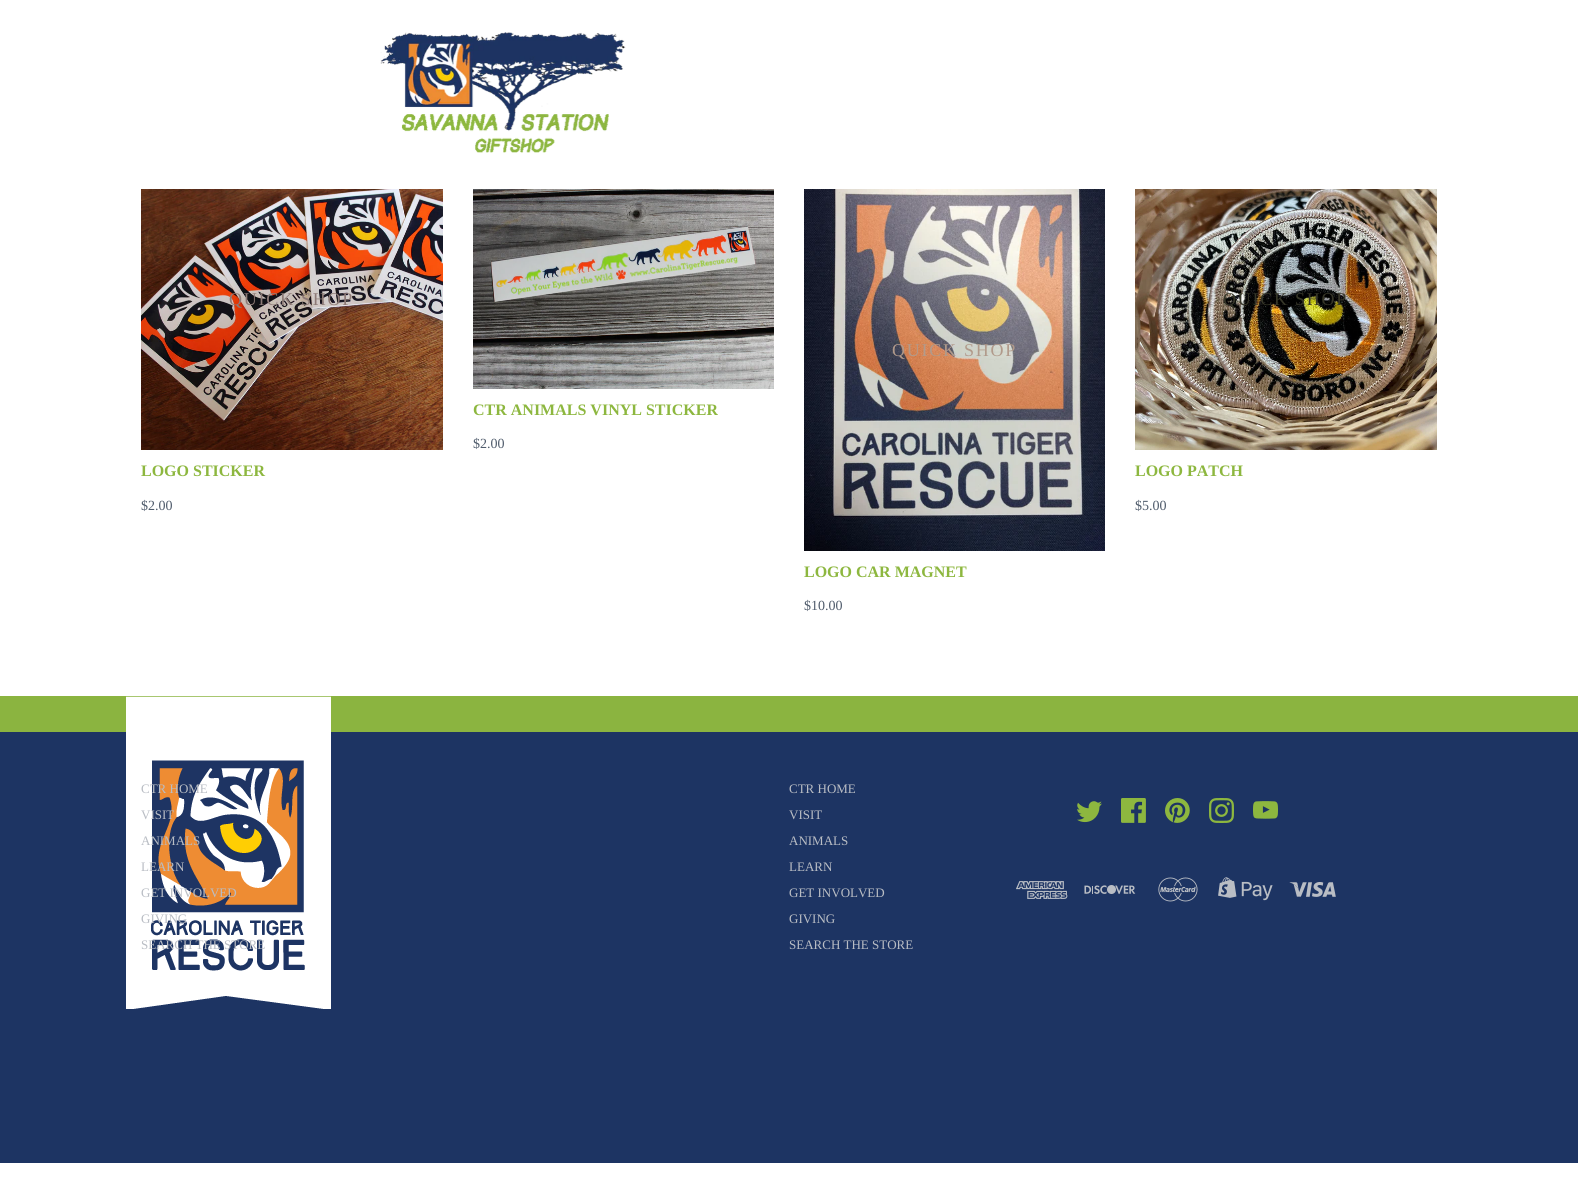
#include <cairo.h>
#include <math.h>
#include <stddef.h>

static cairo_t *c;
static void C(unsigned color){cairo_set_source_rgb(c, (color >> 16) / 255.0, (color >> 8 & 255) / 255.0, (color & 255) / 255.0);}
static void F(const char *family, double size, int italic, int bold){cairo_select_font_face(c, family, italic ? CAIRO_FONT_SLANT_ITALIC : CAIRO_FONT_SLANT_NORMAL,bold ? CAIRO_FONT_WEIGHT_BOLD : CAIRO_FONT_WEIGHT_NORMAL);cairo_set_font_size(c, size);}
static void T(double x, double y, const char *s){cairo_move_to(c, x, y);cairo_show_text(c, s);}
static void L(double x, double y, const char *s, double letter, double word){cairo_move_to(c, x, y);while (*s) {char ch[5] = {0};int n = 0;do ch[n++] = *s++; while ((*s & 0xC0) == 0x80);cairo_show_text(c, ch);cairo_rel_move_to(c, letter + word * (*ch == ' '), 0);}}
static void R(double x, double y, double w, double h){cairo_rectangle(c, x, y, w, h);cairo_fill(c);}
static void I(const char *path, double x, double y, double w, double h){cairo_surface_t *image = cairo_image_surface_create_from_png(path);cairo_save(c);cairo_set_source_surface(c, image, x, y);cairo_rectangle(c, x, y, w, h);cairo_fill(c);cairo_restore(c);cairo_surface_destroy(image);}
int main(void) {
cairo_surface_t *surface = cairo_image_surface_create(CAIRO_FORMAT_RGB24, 1578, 1183);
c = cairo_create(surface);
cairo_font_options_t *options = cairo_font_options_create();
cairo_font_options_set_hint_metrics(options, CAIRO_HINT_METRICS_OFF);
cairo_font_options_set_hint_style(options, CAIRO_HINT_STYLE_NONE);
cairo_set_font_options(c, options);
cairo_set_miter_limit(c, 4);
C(0xffffff);
cairo_paint(c);
I("1.png",380,32,246,121);
I("2.png",141,189,302,261);
F("Liberation Serif",18,0,0);
C(0x8d7a76);
L(229,305,"QUICK SHOP",1.75,0);
F("Liberation Serif",16,0,1);
C(0x8db73f);
T(141,476,"LOGO STICKER");
F("Liberation Serif",14,0,0);
C(0x505c6c);
T(141,510,"$2.00");
I("3.png",473,189,301,200);
F("Liberation Serif",16,0,1);
C(0x8db73f);
T(473,415,"CTR ANIMALS VINYL STICKER");
F("Liberation Serif",14,0,0);
C(0x505c6c);
T(473,448,"$2.00");
I("4.png",804,189,301,362);
F("Liberation Serif",18,0,0);
C(0xb19a8b);
L(892,356,"QUICK SHOP",1.75,0);
F("Liberation Serif",16,0,1);
C(0x8db73f);
T(804,577,"LOGO CAR MAGNET");
F("Liberation Serif",14,0,0);
C(0x505c6c);
T(804,610,"$10.00");
I("5.png",1135,189,302,261);
F("Liberation Serif",18,0,0);
C(0x363628);
L(1223,305,"QUICK SHOP",1.75,0);
F("Liberation Serif",16,0,1);
C(0x8db73f);
T(1135,476,"LOGO PATCH");
F("Liberation Serif",14,0,0);
C(0x505c6c);
T(1135,510,"$5.00");
C(0x1d3463);
R(0,732,1578,431);
C(0x8bb440);
R(0,696,1578,36);
I("6.png",126,696,205,313);
F("Liberation Serif",13,0,0);
C(0xb9bdc4);
T(141,793,"CTR HOME");
T(141,819,"VISIT");
T(141,845,"ANIMALS");
T(141,871,"LEARN");
T(141,897,"GET INVOLVED");
T(141,923,"GIVING");
T(141,949,"SEARCH THE STORE");
T(789,793,"CTR HOME");
T(789,819,"VISIT");
T(789,845,"ANIMALS");
T(789,871,"LEARN");
T(789,897,"GET INVOLVED");
T(789,923,"GIVING");
T(789,949,"SEARCH THE STORE");
I("7.png",1077,801,25,22);
I("8.png",1121,798,25,25);
I("9.png",1165,798,25,25);
I("10.png",1209,798,25,25);
I("11.png",1253,801,25,18);
I("12.png",1016,881,52,18);
I("13.png",1084,885,52,9);
I("14.png",1158,877,40,25);
I("15.png",1218,877,55,24);
I("16.png",1289,882,47,15);
cairo_surface_write_to_png(surface, "o.png");
cairo_font_options_destroy(options);
cairo_destroy(c);
cairo_surface_destroy(surface);
return 0;
}
